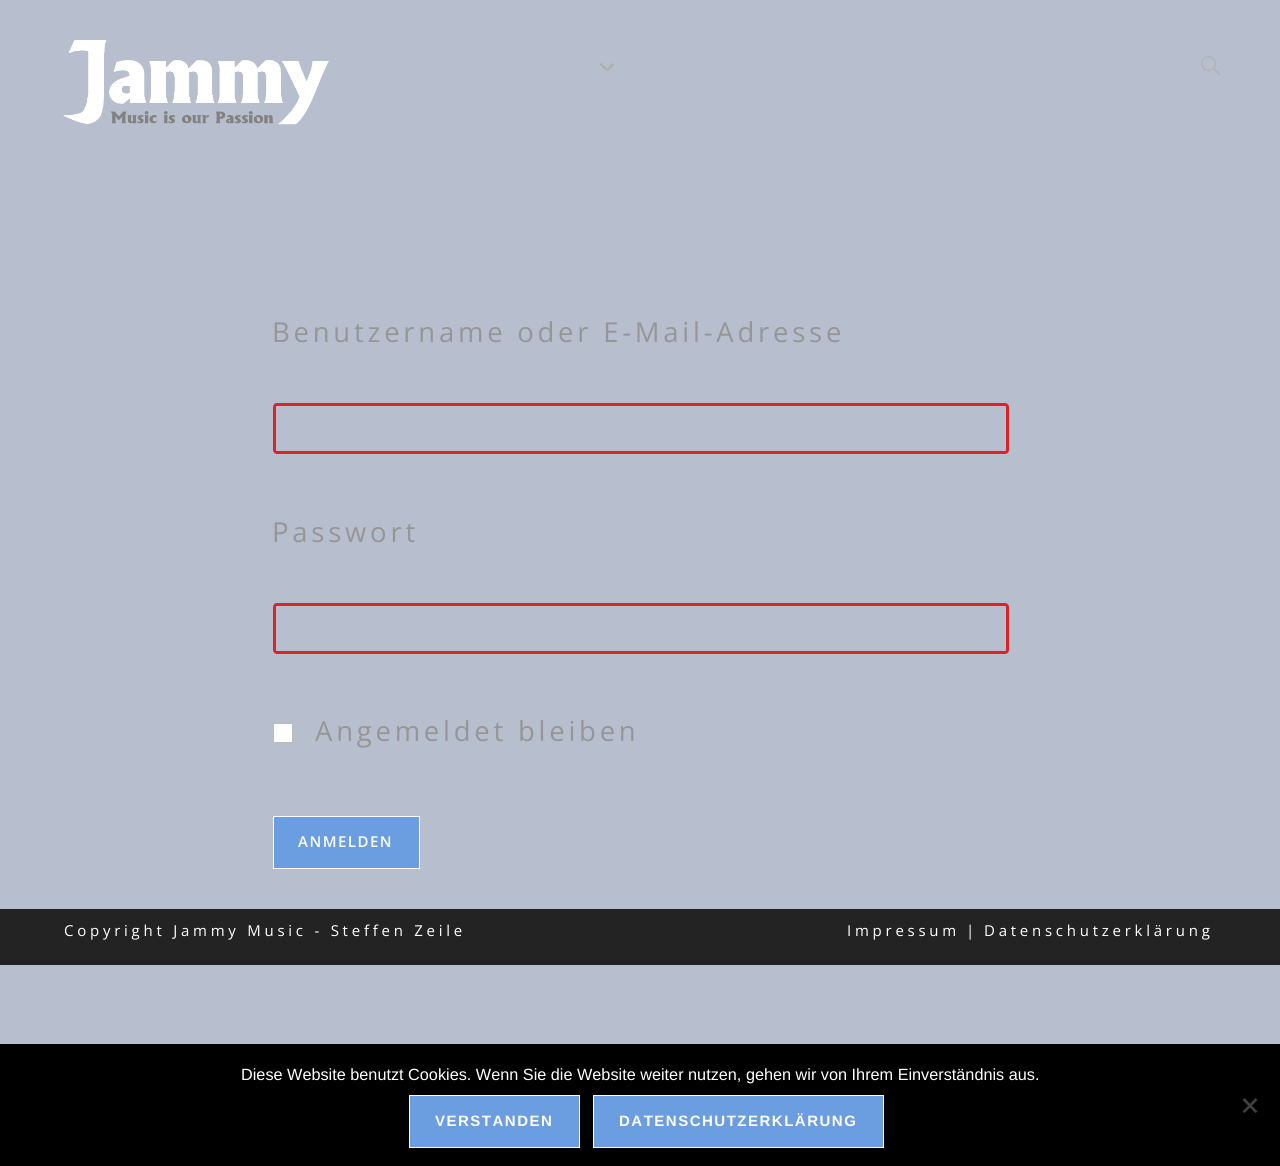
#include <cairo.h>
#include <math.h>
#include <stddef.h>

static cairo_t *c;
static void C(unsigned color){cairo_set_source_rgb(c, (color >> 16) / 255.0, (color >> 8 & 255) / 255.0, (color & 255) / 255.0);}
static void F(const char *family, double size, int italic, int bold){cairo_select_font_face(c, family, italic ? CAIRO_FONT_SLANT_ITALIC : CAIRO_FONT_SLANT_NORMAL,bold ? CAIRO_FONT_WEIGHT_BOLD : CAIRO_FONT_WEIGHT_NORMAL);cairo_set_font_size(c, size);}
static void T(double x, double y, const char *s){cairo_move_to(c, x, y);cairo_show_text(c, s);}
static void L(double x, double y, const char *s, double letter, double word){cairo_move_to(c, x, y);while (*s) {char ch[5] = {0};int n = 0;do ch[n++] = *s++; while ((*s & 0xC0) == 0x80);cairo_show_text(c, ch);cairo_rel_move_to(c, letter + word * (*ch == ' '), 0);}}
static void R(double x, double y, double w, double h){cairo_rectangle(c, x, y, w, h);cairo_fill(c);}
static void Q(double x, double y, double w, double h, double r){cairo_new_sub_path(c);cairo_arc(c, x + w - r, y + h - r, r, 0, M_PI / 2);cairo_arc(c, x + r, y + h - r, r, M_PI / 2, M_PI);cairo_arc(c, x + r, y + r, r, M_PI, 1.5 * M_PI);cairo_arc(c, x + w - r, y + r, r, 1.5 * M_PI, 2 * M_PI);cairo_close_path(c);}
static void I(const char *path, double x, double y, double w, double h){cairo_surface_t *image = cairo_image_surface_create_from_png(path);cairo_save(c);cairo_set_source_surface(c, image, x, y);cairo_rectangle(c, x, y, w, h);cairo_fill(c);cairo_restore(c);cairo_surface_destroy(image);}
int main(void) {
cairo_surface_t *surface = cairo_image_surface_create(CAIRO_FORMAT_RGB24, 1280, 1166);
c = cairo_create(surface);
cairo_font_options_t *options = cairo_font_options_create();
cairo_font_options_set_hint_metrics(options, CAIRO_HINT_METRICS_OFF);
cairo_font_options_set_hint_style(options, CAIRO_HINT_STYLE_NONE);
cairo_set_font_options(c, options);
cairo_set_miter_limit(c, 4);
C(0xb7becd);
cairo_paint(c);
I("1.png",63,40,266,85);
I("2.png",600,63,14,9);
I("3.png",1201,56,19,19);
F("Open Sans",27.5,0,0);
C(0x969696);
L(272,342,"Benutzername oder E-Mail-Adresse",3.75,0);
Q(274.5,404.5,733,48,2.5);
C(0xdd2323);
cairo_set_line_width(c,3);
cairo_stroke(c);
C(0x969696);
L(272,542,"Passwort",3.75,0);
Q(274.5,604.5,733,48,2.5);
C(0xdd2323);
cairo_stroke(c);
C(0xffffff);
cairo_rectangle(c,273.5,723.5,19,19);
cairo_fill_preserve(c);
C(0xbbbbbb);
cairo_set_line_width(c,1);
cairo_stroke(c);
C(0x969696);
L(315,741,"Angemeldet bleiben",3.75,0);
C(0x6b9ee0);
cairo_rectangle(c,273.5,816.5,146,52);
cairo_fill_preserve(c);
C(0xffffff);
cairo_stroke(c);
F("Open Sans SemiBold",15,0,0);
L(298,847,"ANMELDEN",1.5,0);
C(0x232323);
R(0,909,1280,56);
F("Open Sans",15,0,0);
C(0xffffff);
L(64,936,"Copyright Jammy Music - Steffen Zeile",3.75,0);
L(847,936,"Impressum",3.75,0);
L(966,936,"|",3.75,0);
L(984,936,"Datenschutzerklärung",3.75,0);
C(0x000000);
R(0,1044,1280,122);
F("Liberation Sans",16.25,0,0);
C(0xffffff);
T(241,1080,"Diese Website benutzt Cookies. Wenn Sie die Website weiter nutzen, gehen wir von Ihrem Einverständnis aus.");
C(0x404040);
cairo_new_path(c);
cairo_move_to(c,1255.5,1098);
cairo_line_to(c,1257.5,1100);
cairo_line_to(c,1244.5,1113);
cairo_line_to(c,1242.5,1111.5);
cairo_close_path(c);
cairo_fill(c);
cairo_new_path(c);
cairo_move_to(c,1242.5,1100);
cairo_line_to(c,1244.5,1098);
cairo_line_to(c,1257.5,1111.5);
cairo_line_to(c,1255.5,1113);
cairo_close_path(c);
cairo_fill(c);
C(0x6b9ee0);
cairo_rectangle(c,409.5,1095.5,170,52);
cairo_fill_preserve(c);
C(0xffffff);
cairo_stroke(c);
F("Liberation Sans",15,0,1);
L(435,1126,"VERSTANDEN",1.5,0);
C(0x6b9ee0);
cairo_rectangle(c,593.5,1095.5,290,52);
cairo_fill_preserve(c);
C(0xffffff);
cairo_stroke(c);
L(619,1126,"DATENSCHUTZERKLÄRUNG",1.5,0);
cairo_surface_write_to_png(surface, "o.png");
cairo_font_options_destroy(options);
cairo_destroy(c);
cairo_surface_destroy(surface);
return 0;
}
